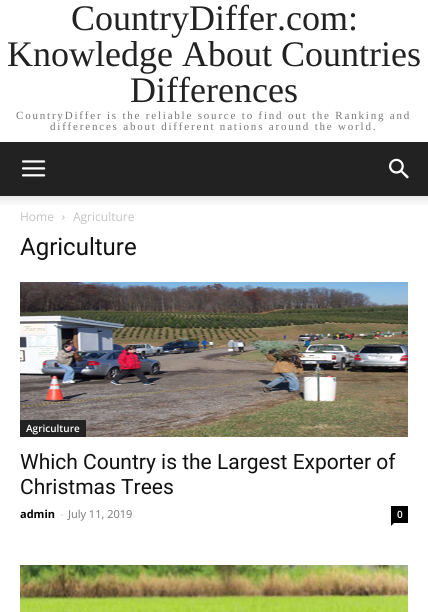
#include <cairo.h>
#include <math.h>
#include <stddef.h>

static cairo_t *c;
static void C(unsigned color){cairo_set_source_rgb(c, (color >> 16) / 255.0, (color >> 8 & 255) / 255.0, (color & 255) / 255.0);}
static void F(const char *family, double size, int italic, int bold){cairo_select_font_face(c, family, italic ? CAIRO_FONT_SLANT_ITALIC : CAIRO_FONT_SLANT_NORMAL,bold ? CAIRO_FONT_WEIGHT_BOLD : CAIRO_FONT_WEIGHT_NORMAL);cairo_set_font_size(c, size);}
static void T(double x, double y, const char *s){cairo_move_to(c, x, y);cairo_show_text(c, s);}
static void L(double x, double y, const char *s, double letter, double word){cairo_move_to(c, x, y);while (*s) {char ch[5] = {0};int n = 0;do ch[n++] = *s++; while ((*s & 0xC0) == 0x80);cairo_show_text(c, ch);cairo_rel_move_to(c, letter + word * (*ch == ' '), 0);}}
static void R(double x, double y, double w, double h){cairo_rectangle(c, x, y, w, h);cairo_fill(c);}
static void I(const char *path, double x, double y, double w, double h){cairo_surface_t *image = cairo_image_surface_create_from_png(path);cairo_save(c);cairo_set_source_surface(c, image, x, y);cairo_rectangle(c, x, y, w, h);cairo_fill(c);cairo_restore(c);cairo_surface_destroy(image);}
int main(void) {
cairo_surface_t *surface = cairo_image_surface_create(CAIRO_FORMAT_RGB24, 428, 612);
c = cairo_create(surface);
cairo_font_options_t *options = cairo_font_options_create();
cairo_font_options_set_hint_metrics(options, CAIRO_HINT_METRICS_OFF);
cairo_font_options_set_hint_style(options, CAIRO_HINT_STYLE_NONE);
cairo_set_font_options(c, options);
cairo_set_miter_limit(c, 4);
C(0xffffff);
cairo_paint(c);
F("Liberation Serif",36,0,0);
C(0x222222);
T(71,30,"CountryDiffer.com:");
T(7,66,"Knowledge About Countries");
T(130,102,"Differences");
F("Liberation Serif",11,0,0);
C(0x767676);
L(16,119,"CountryDiffer is the reliable source to find out the Ranking and",1.8,0);
L(50,130,"differences about different nations around the world.",1.8,0);
C(0x222222);
R(0,142,428,54);
I("1.png",22,160,24,17);
I("2.png",389,158,20,21);
I("3.png",0,196,428,9);
F("Open Sans",12,0,0);
C(0xc3c3c3);
T(20,221,"Home");
I("4.png",62,215,3,5);
T(73,221,"Agriculture");
F("Roboto",24,0,0);
C(0x111111);
T(20,255,"Agriculture");
I("5.png",20,282,388,155);
C(0x222222);
R(20,420,66,17);
F("Open Sans SemiBold",10,0,0);
C(0xffffff);
T(26,432,"Agriculture");
F("Roboto",21,0,0);
C(0x111111);
T(20,469,"Which Country is the Largest Exporter of");
T(20,494,"Christmas Trees");
F("Open Sans",11,0,1);
C(0x000000);
T(20,518,"admin");
F("Open Sans",11,0,0);
C(0xcccccc);
T(60,518,"-");
C(0x767676);
T(68,518,"July 11, 2019");
C(0x000000);
R(391,506,17,17);
F("Open Sans SemiBold",10,0,0);
C(0xffffff);
T(397,518,"0");
C(0x000000);
cairo_new_path(c);
cairo_move_to(c,391,523);
cairo_line_to(c,394,523);
cairo_line_to(c,391,526);
cairo_close_path(c);
cairo_fill(c);
I("6.png",20,565,388,47);
cairo_surface_write_to_png(surface, "o.png");
cairo_font_options_destroy(options);
cairo_destroy(c);
cairo_surface_destroy(surface);
return 0;
}
